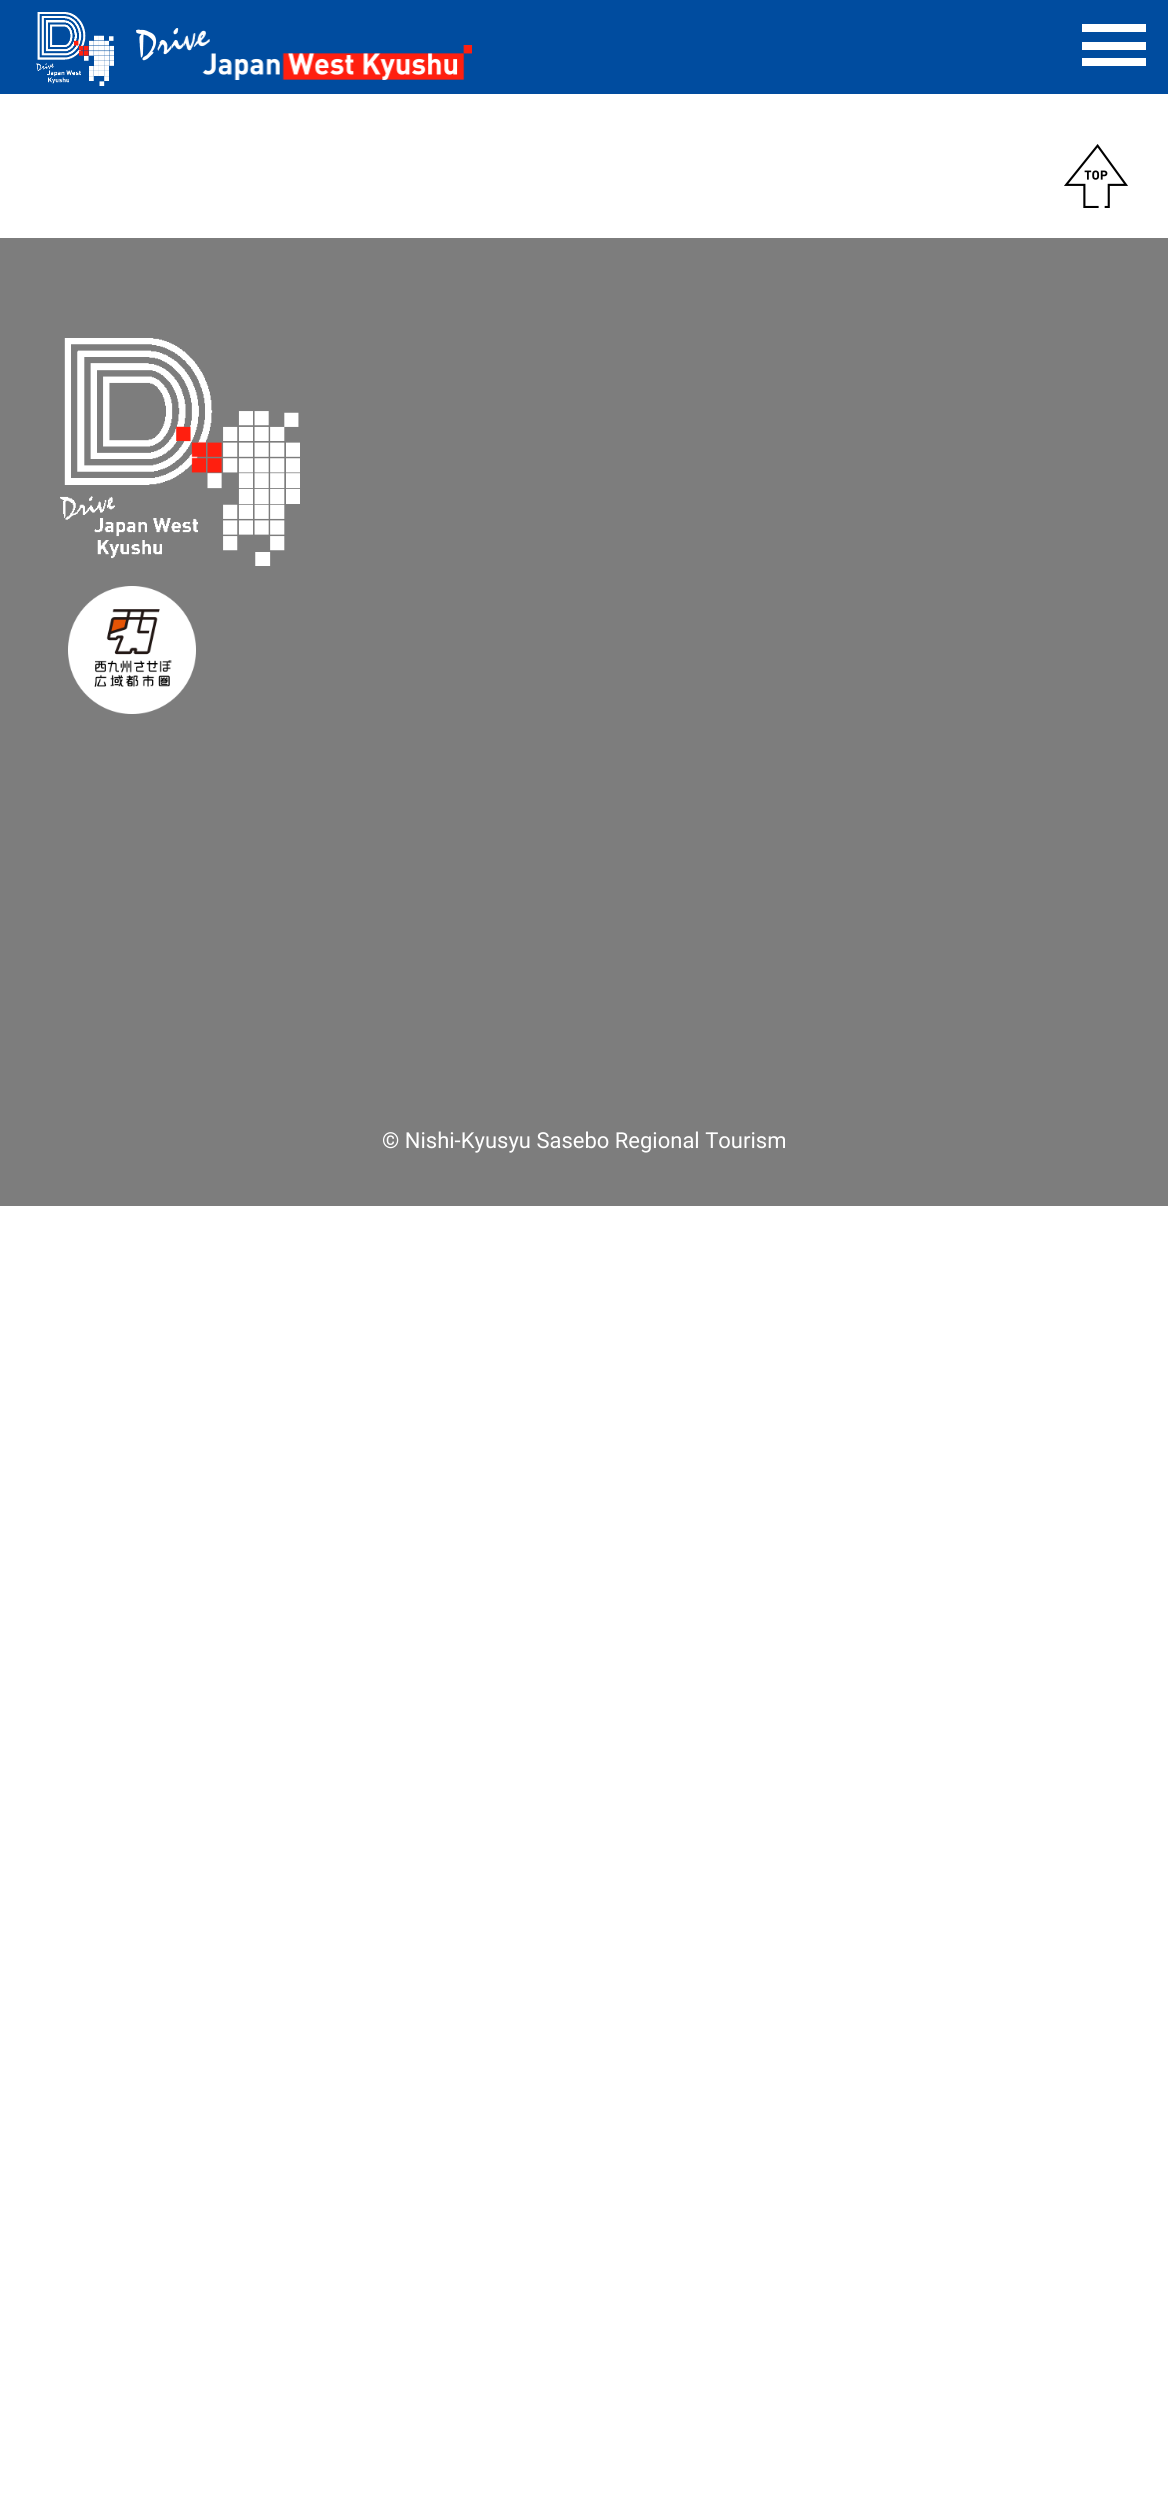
#include <cairo.h>
#include <math.h>
#include <stddef.h>

static cairo_t *c;
static void C(unsigned color){cairo_set_source_rgb(c, (color >> 16) / 255.0, (color >> 8 & 255) / 255.0, (color & 255) / 255.0);}
static void F(const char *family, double size, int italic, int bold){cairo_select_font_face(c, family, italic ? CAIRO_FONT_SLANT_ITALIC : CAIRO_FONT_SLANT_NORMAL,bold ? CAIRO_FONT_WEIGHT_BOLD : CAIRO_FONT_WEIGHT_NORMAL);cairo_set_font_size(c, size);}
static void T(double x, double y, const char *s){cairo_move_to(c, x, y);cairo_show_text(c, s);}
static void R(double x, double y, double w, double h){cairo_rectangle(c, x, y, w, h);cairo_fill(c);}
static void I(const char *path, double x, double y, double w, double h){cairo_surface_t *image = cairo_image_surface_create_from_png(path);cairo_save(c);cairo_set_source_surface(c, image, x, y);cairo_rectangle(c, x, y, w, h);cairo_fill(c);cairo_restore(c);cairo_surface_destroy(image);}
int main(void) {
cairo_surface_t *surface = cairo_image_surface_create(CAIRO_FORMAT_RGB24, 1168, 2507);
c = cairo_create(surface);
cairo_font_options_t *options = cairo_font_options_create();
cairo_font_options_set_hint_metrics(options, CAIRO_HINT_METRICS_OFF);
cairo_font_options_set_hint_style(options, CAIRO_HINT_STYLE_NONE);
cairo_set_font_options(c, options);
cairo_set_miter_limit(c, 4);
C(0xffffff);
cairo_paint(c);
C(0x004c9f);
R(0,0,1168,94);
I("1.png",36,12,78,74);
I("2.png",136,28,336,52);
C(0xffffff);
R(1082,24,64,8);
R(1082,42,64,8);
R(1082,58,64,8);
I("3.png",1064,144,64,64);
C(0x7d7d7d);
R(0,238,1168,968);
I("4.png",60,338,240,228);
I("5.png",68,586,128,128);
F("Roboto",22,0,0);
C(0xffffff);
T(382,1148,"© Nishi-Kyusyu Sasebo Regional Tourism");
cairo_surface_write_to_png(surface, "o.png");
cairo_font_options_destroy(options);
cairo_destroy(c);
cairo_surface_destroy(surface);
return 0;
}
